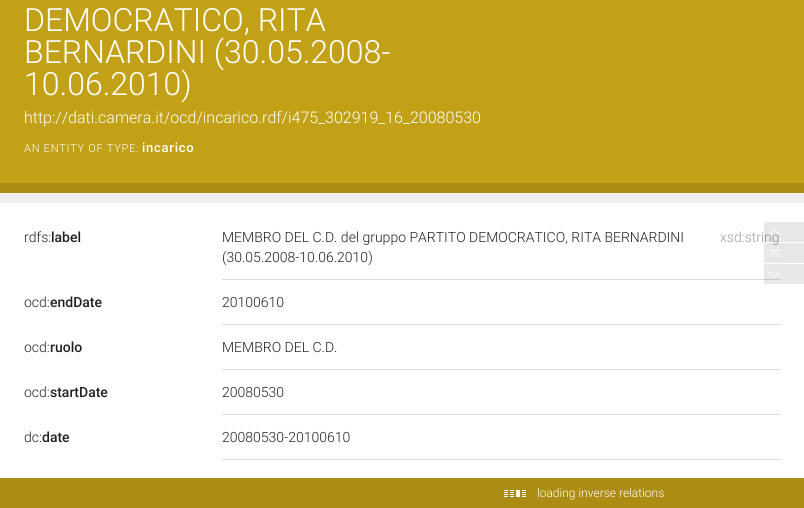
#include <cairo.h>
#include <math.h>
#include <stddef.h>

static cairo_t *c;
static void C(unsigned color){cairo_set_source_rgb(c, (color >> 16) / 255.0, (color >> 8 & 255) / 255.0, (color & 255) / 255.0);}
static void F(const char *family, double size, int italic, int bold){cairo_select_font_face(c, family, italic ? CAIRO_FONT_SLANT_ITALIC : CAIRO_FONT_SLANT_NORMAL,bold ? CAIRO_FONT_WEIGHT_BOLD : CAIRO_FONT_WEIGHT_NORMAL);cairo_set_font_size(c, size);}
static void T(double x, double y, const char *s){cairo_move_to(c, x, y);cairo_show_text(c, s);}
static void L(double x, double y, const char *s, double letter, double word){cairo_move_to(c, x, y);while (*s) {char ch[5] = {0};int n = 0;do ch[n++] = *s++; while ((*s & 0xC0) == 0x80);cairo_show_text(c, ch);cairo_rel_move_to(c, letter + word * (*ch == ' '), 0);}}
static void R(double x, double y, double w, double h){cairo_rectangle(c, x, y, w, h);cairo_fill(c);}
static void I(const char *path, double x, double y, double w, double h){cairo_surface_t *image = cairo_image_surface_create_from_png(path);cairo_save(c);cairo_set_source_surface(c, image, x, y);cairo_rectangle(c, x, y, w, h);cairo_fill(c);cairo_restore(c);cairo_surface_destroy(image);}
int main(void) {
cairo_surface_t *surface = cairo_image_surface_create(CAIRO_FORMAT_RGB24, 804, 508);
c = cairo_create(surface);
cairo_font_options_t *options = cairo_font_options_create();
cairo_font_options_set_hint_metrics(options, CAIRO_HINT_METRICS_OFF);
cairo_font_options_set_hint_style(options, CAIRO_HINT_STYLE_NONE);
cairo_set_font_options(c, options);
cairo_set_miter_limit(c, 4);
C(0xac8c13);
cairo_paint(c);
C(0xc3a116);
R(0,0,804,183);
F("Roboto Light",32,0,0);
C(0xffffff);
T(24,31,"DEMOCRATICO, RITA");
T(24,63,"BERNARDINI (30.05.2008-");
T(24,95,"10.06.2010)");
F("Roboto Light",16,0,0);
T(24,123,"http://dati.camera.it/ocd/incarico.rdf/i475_302919_16_20080530");
F("Roboto Light",11,0,0);
L(24,152,"AN ENTITY OF TYPE:",.75,0);
F("Roboto Medium",13,0,0);
L(142,152,"incarico",.75,0);
C(0xeeeeee);
R(0,193,804,10);
C(0xffffff);
R(0,203,804,275);
F("Roboto Light",14,0,0);
C(0x212121);
T(24,242,"rdfs:");
F("Roboto Medium",14,0,0);
T(51,242,"label");
C(0xdbdbdb);
R(222,279,558,1);
F("Roboto Light",14,0,0);
C(0x212121);
T(222,242,"MEMBRO DEL C.D. del gruppo PARTITO DEMOCRATICO, RITA BERNARDINI");
C(0x9e9e9e);
T(720,242,"xsd:string");
C(0x212121);
T(222,262,"(30.05.2008-10.06.2010)");
T(24,307,"ocd:");
F("Roboto Medium",14,0,0);
T(50,307,"endDate");
C(0xdbdbdb);
R(222,324,558,1);
F("Roboto Light",14,0,0);
C(0x212121);
T(222,307,"20100610");
T(24,352,"ocd:");
F("Roboto Medium",14,0,0);
T(50,352,"ruolo");
C(0xdbdbdb);
R(222,369,558,1);
F("Roboto Light",14,0,0);
C(0x212121);
T(222,352,"MEMBRO DEL C.D.");
T(24,397,"ocd:");
F("Roboto Medium",14,0,0);
T(50,397,"startDate");
C(0xdbdbdb);
R(222,414,558,1);
F("Roboto Light",14,0,0);
C(0x212121);
T(222,397,"20080530");
T(24,442,"dc:");
F("Roboto Medium",14,0,0);
T(42,442,"date");
C(0xdbdbdb);
R(222,459,558,1);
F("Roboto Light",14,0,0);
C(0x212121);
T(222,442,"20080530-20100610");
I("1.png",764,222,40,20);
I("2.png",764,243,40,20);
I("3.png",764,264,40,20);
I("4.png",504,490,22,7);
F("Roboto Light",12,0,0);
C(0xffffff);
T(537,497,"loading inverse relations");
cairo_surface_write_to_png(surface, "o.png");
cairo_font_options_destroy(options);
cairo_destroy(c);
cairo_surface_destroy(surface);
return 0;
}
